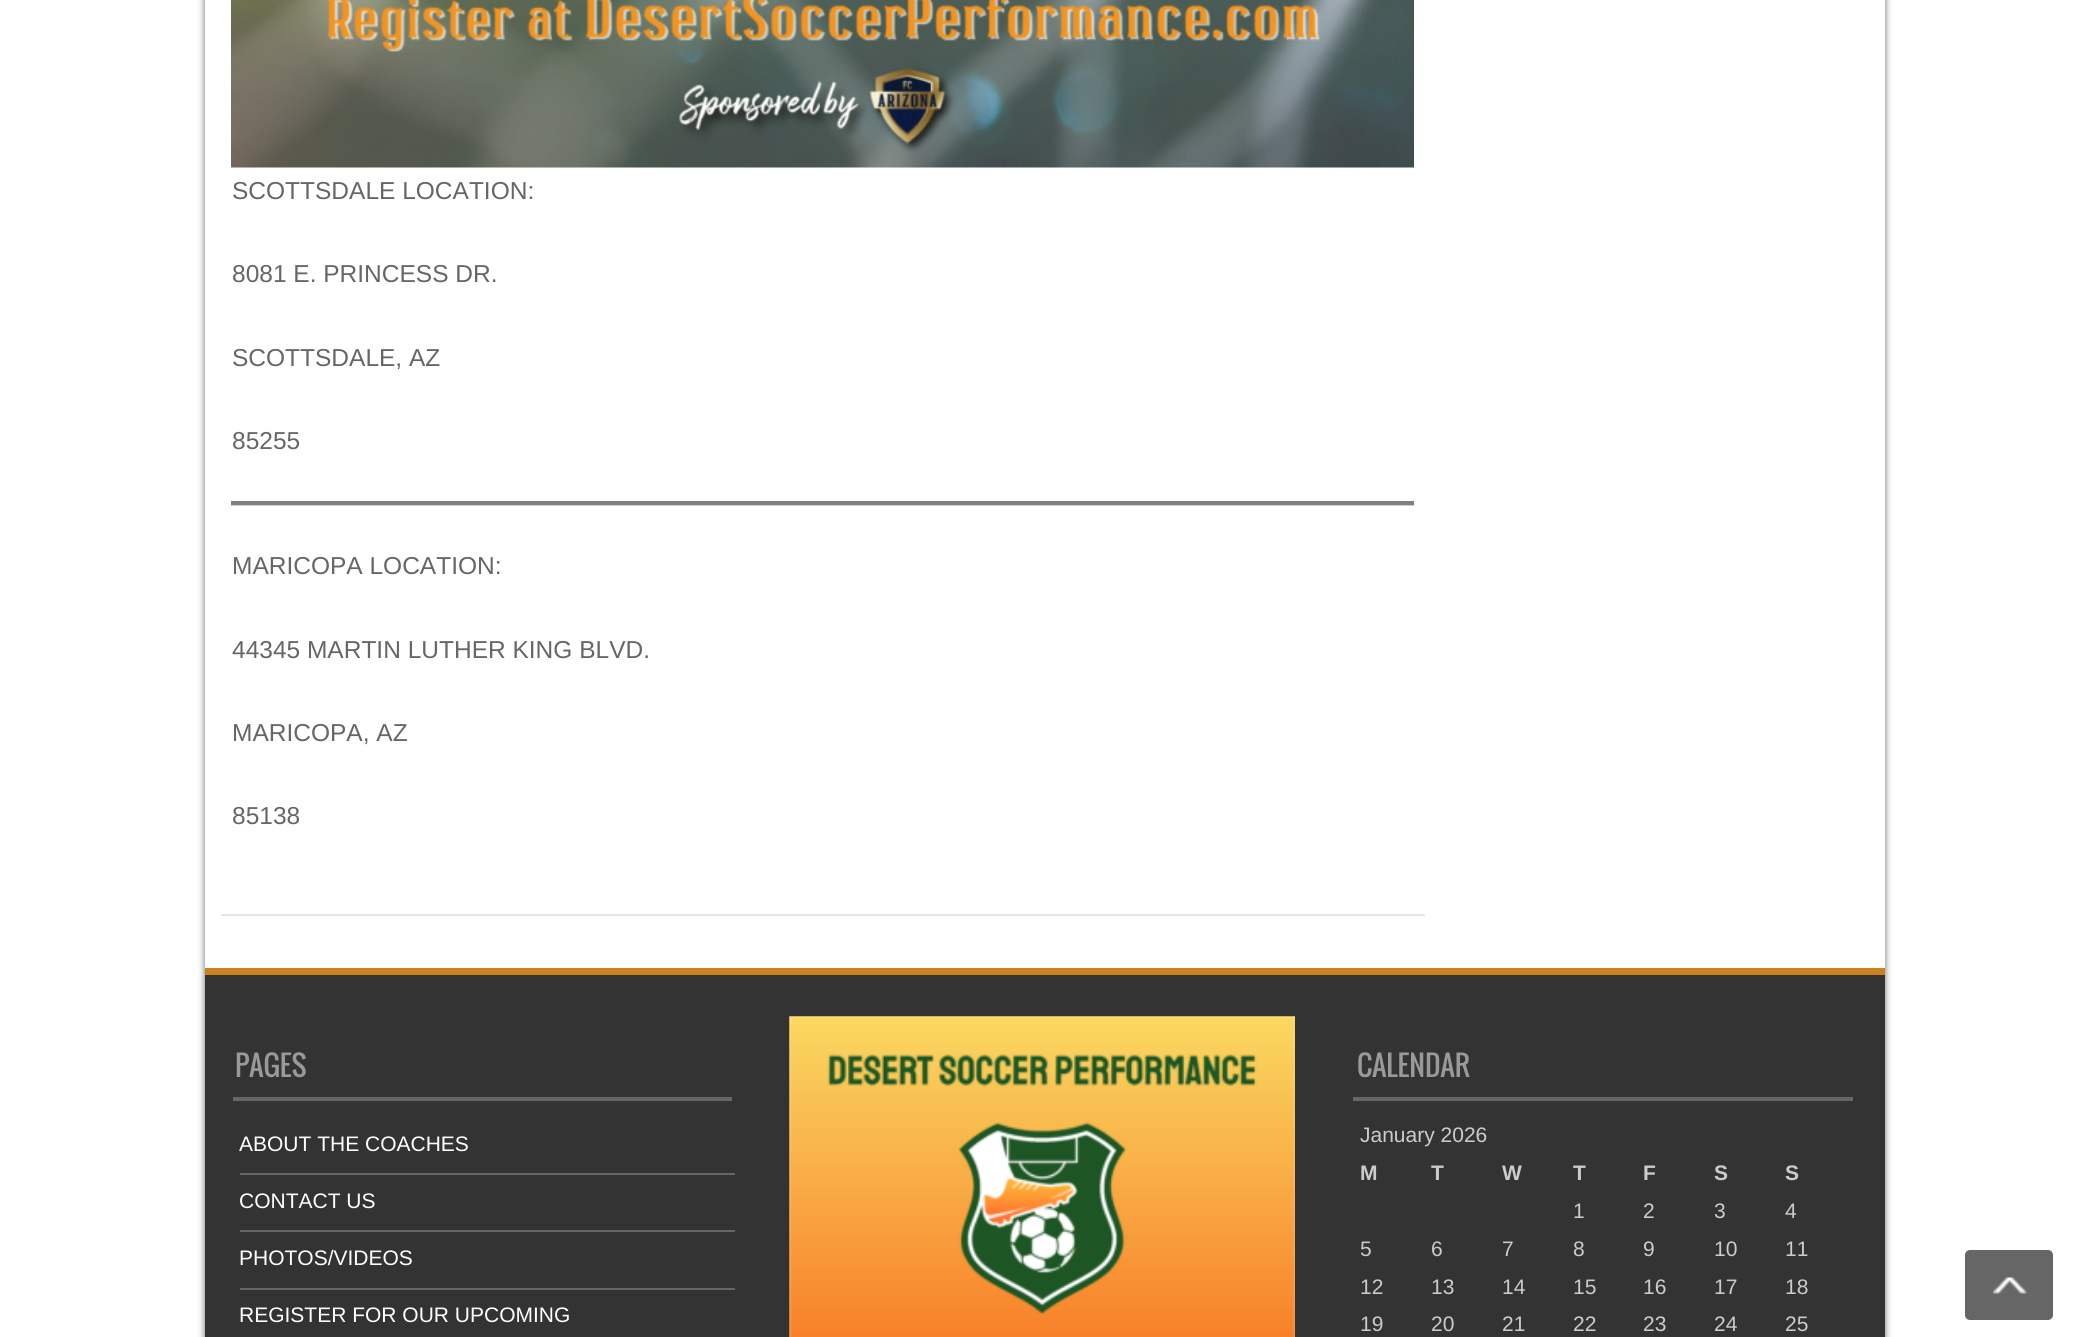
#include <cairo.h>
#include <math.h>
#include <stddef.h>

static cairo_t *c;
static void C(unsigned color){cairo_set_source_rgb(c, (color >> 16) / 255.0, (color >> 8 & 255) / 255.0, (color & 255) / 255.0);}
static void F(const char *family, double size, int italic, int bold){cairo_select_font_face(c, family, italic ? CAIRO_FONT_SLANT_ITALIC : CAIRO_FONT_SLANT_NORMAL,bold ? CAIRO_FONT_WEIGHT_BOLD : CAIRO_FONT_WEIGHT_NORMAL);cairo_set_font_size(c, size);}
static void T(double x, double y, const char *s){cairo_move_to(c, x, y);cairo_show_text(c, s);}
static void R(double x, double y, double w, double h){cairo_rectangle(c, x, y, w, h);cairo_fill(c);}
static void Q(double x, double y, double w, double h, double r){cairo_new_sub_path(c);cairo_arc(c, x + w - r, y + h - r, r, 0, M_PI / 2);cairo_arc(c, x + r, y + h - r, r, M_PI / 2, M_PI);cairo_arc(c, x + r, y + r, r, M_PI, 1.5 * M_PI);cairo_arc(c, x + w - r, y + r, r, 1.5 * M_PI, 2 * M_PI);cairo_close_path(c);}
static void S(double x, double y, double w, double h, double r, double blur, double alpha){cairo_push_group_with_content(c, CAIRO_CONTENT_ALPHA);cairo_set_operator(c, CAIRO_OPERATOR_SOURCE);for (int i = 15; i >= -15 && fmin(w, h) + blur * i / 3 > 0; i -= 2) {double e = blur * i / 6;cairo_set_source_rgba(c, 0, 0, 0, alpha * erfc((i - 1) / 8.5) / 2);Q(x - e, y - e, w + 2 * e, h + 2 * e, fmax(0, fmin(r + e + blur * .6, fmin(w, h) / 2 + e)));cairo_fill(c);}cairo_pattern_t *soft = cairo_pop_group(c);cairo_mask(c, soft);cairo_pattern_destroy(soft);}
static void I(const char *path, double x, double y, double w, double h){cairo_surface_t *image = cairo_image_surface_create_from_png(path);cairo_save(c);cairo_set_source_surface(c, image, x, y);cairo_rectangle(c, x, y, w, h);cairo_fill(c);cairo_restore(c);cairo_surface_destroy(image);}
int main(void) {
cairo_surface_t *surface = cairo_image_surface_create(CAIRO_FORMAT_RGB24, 2087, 1337);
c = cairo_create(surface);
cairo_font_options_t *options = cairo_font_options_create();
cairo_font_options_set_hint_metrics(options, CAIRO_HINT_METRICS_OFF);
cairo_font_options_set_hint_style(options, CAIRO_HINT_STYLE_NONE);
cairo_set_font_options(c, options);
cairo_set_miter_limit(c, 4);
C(0xffffff);
cairo_paint(c);
C(0x000000);
S(205,-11,1680,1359,0,3.5,.6);
C(0xffffff);
R(205,0,1680,968);
C(0xe6e6e6);
R(221,914,1204,2);
I("1.png",231,0,1183,168);
F("Liberation Sans",24.5,0,0);
C(0x666666);
T(232,199,"SCOTTSDALE LOCATION:");
T(232,282,"8081 E. PRINCESS DR.");
T(232,366,"SCOTTSDALE, AZ");
T(232,449,"85255");
C(0xcccccc);
R(231,505,1183,1);
C(0x808080);
R(231,501,1183,4);
C(0x666666);
T(232,574,"MARICOPA LOCATION:");
T(232,658,"44345 MARTIN LUTHER KING BLVD.");
T(232,741,"MARICOPA, AZ");
T(232,824,"85138");
C(0x333333);
R(205,975,1680,362);
C(0xcc801e);
R(205,968,1680,7);
C(0x666666);
R(233,1097,499,4);
F("Oswald",28,0,0);
C(0x999999);
T(235,1077,"PAGES");
C(0x666666);
R(240,1173,495,2);
F("Liberation Sans",21,0,0);
C(0xffffff);
T(239,1151,"ABOUT THE COACHES");
C(0x666666);
R(240,1230,495,2);
C(0xffffff);
T(239,1208,"CONTACT US");
C(0x666666);
R(240,1288,495,2);
C(0xffffff);
T(239,1265,"PHOTOS/VIDEOS");
T(239,1322,"REGISTER FOR OUR UPCOMING");
I("2.png",789,1016,506,321);
C(0x666666);
R(1353,1097,500,4);
F("Oswald",28,0,0);
C(0x999999);
T(1357,1077,"CALENDAR");
F("Liberation Sans",21,0,0);
C(0xcccccc);
T(1360,1142,"January 2026");
F("Liberation Sans",21,0,1);
T(1360,1180,"M");
T(1431,1180,"T");
T(1502,1180,"W");
T(1573,1180,"T");
T(1643,1180,"F");
T(1714,1180,"S");
T(1785,1180,"S");
F("Liberation Sans",21,0,0);
T(1573,1218,"1");
T(1643,1218,"2");
T(1714,1218,"3");
T(1785,1218,"4");
T(1360,1256,"5");
T(1431,1256,"6");
T(1502,1256,"7");
T(1573,1256,"8");
T(1643,1256,"9");
T(1714,1256,"10");
T(1785,1256,"11");
T(1360,1294,"12");
T(1431,1294,"13");
T(1502,1294,"14");
T(1573,1294,"15");
T(1643,1294,"16");
T(1714,1294,"17");
T(1785,1294,"18");
T(1360,1331,"19");
T(1431,1331,"20");
T(1502,1331,"21");
T(1573,1331,"22");
T(1643,1331,"23");
T(1714,1331,"24");
T(1785,1331,"25");
C(0x666666);
Q(1965,1250,88,70,5);
cairo_fill(c);
I("3.png",1993,1277,34,17);
cairo_surface_write_to_png(surface, "o.png");
cairo_font_options_destroy(options);
cairo_destroy(c);
cairo_surface_destroy(surface);
return 0;
}
